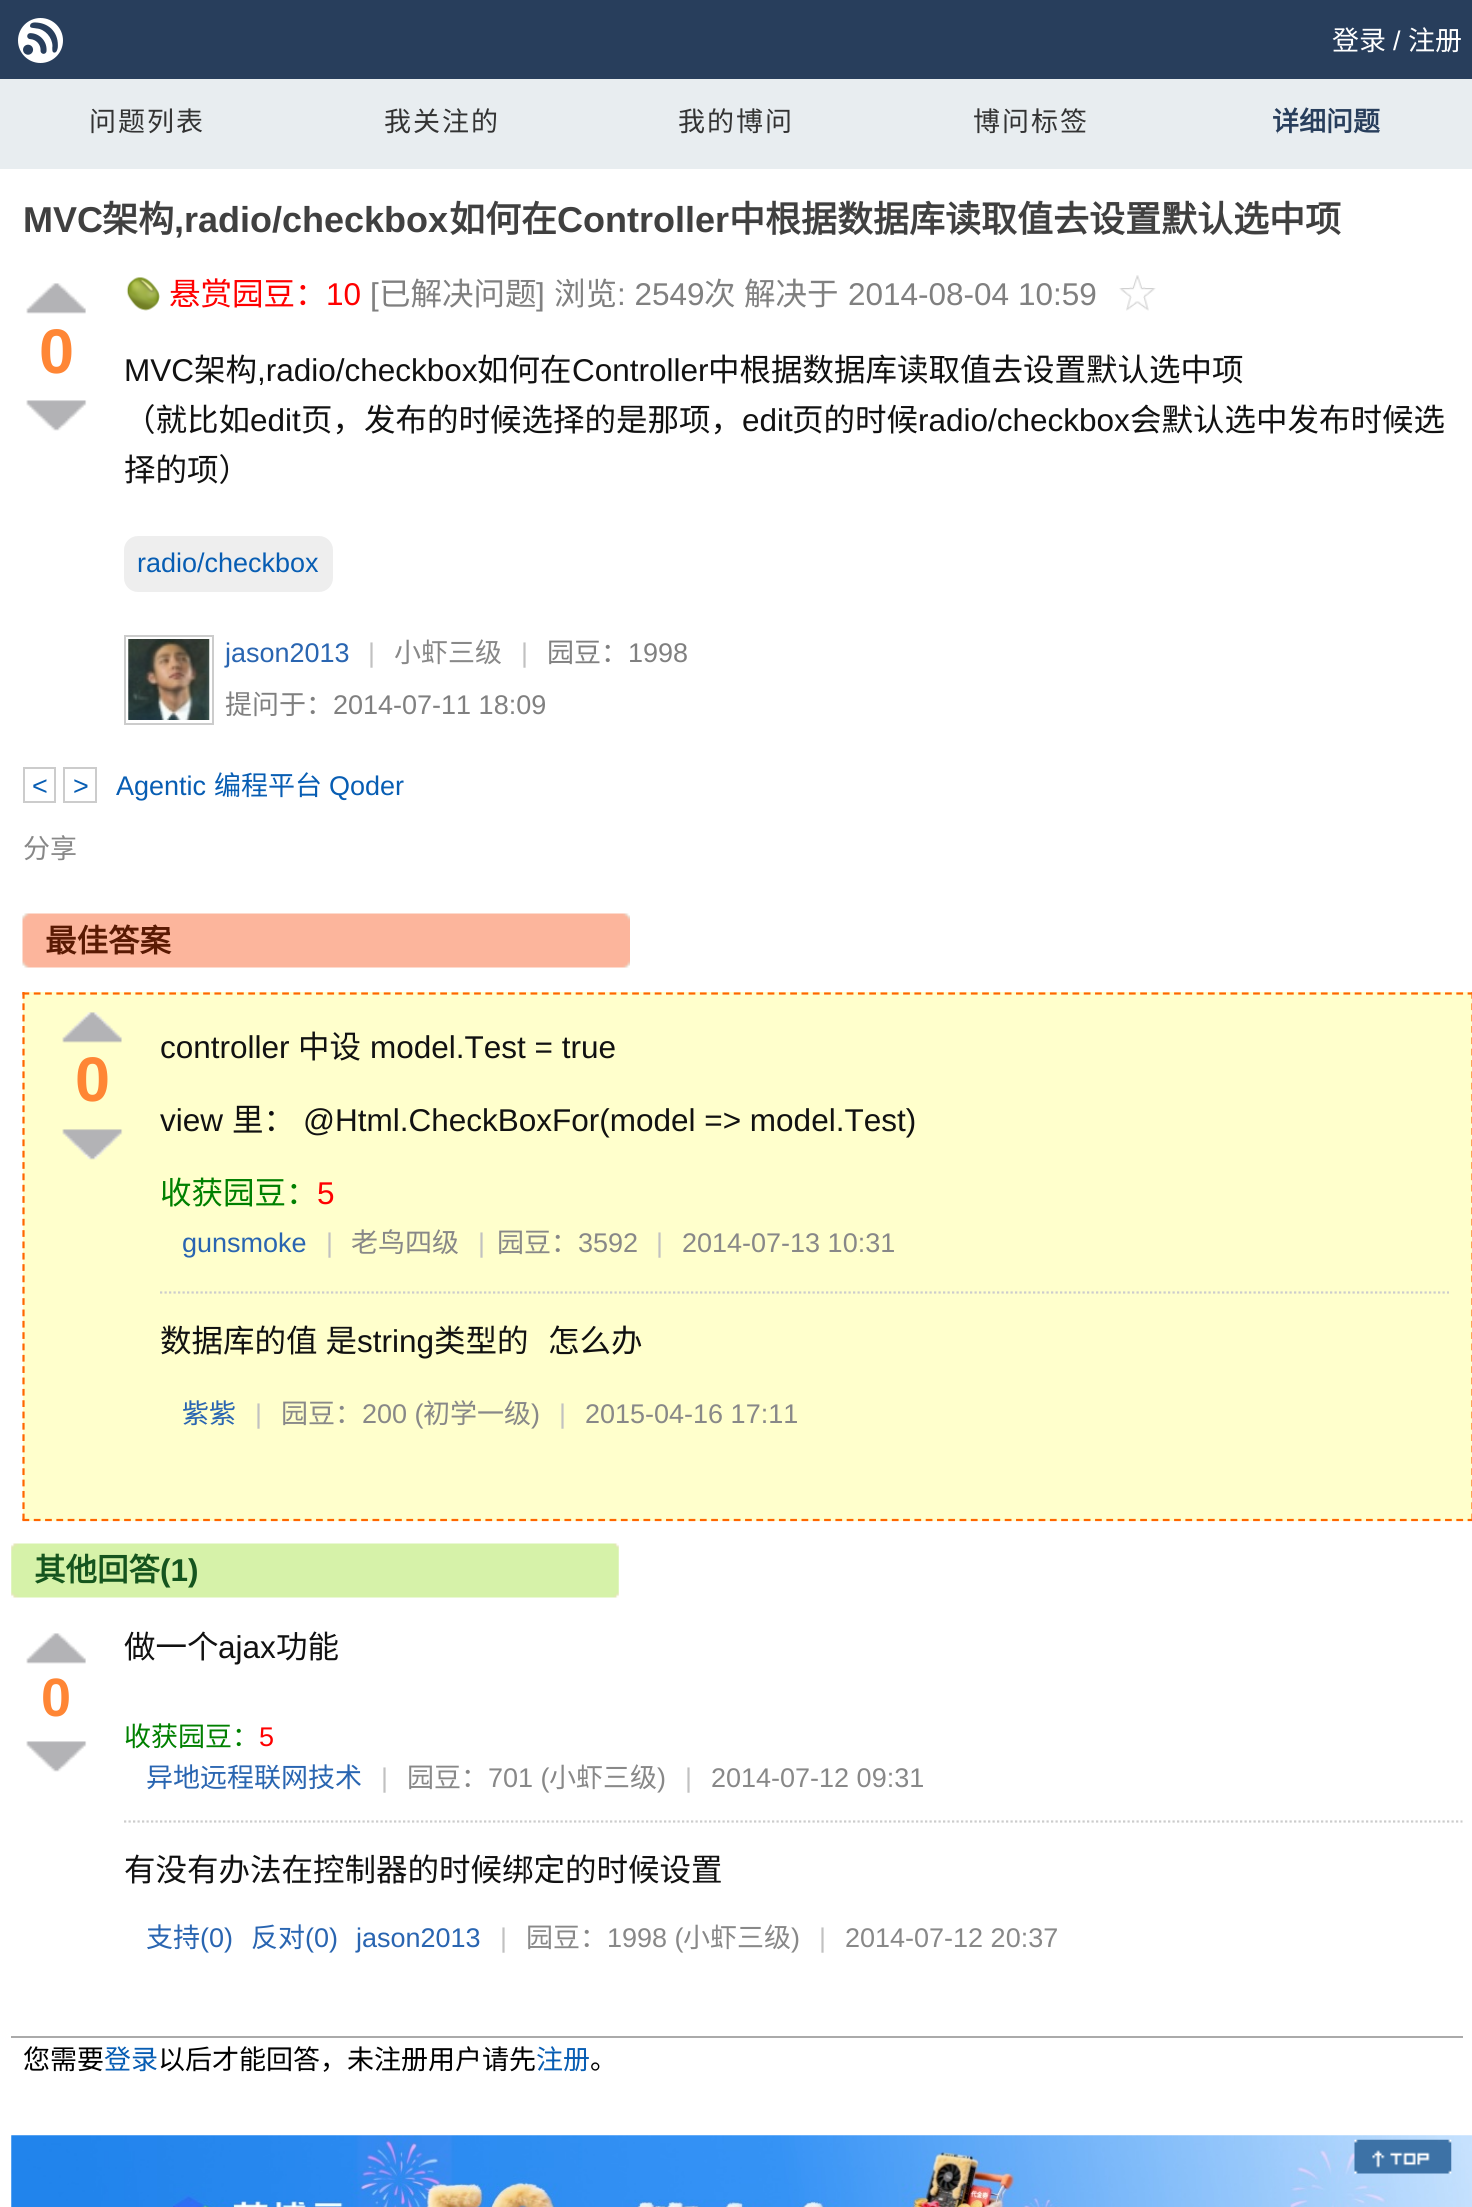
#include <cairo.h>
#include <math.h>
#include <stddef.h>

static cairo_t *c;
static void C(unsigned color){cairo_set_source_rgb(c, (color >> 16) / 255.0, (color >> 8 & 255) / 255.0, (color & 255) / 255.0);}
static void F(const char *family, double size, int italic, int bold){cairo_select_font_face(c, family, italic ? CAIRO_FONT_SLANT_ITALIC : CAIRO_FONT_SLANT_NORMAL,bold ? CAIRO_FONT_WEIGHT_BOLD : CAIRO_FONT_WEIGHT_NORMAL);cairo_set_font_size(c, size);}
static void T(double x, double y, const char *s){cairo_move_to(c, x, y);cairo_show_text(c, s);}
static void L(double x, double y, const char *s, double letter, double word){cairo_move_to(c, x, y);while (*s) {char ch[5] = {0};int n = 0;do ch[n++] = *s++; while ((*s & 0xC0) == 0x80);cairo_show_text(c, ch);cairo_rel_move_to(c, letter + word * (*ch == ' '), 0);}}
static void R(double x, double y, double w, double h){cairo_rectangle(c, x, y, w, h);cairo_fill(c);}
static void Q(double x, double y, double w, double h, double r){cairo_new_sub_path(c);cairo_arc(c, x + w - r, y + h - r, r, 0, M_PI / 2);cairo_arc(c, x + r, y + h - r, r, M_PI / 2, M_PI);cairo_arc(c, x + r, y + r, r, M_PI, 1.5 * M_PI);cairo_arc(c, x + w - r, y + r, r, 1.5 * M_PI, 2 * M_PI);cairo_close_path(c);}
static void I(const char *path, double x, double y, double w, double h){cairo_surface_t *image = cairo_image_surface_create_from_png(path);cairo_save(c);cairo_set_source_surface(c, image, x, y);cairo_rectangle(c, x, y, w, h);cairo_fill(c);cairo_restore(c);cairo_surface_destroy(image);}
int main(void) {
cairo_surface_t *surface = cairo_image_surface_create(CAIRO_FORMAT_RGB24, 1472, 2207);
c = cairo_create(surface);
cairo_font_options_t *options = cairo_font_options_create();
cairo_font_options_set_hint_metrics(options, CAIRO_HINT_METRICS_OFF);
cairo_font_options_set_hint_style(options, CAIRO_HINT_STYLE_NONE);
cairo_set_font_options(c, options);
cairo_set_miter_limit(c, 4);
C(0xffffff);
cairo_paint(c);
C(0x283e5c);
R(0,0,1472,79);
I("1.png",18,18,45,45);
F("Noto Sans CJK SC",27,0,0);
C(0xffffff);
T(1332,50,"登录");
F("Liberation Sans",27,0,0);
T(1393,50,"/");
F("Noto Sans CJK SC",27,0,0);
T(1408,50,"注册");
C(0xe8edf0);
R(0,79,1472,90);
C(0x333333);
L(89,131,"问题列表",2,0);
L(384,131,"我关注的",2,0);
L(678,131,"我的博问",2,0);
L(973,131,"博问标签",2,0);
F("Noto Sans CJK SC",27,0,1);
C(0x283e5c);
T(1272,131,"详细问题");
F("Liberation Sans",36,0,1);
C(0x404040);
T(23,232,"MVC");
F("Noto Sans CJK SC",36,0,1);
T(102,232,"架构");
F("Liberation Sans",36,0,1);
T(174,232,",radio/checkbox");
F("Noto Sans CJK SC",36,0,1);
T(449,232,"如何在");
F("Liberation Sans",36,0,1);
T(557,232,"Controller");
F("Noto Sans CJK SC",36,0,1);
T(729,232,"中根据数据库读取值去设置默认选中项");
I("2.png",26,283,60,31);
F("Liberation Sans",63,0,1);
C(0xff8635);
T(39,373,"0");
I("3.png",26,400,61,31);
I("4.png",126,277,34,34);
F("Noto Sans CJK SC",31.5,0,0);
C(0xff0000);
T(169,305,"悬赏园豆：");
F("Liberation Sans",31.5,0,0);
T(326,305,"10");
C(0x808080);
T(370,305,"[");
F("Noto Sans CJK SC",31.5,0,0);
T(379,305,"已解决问题");
F("Liberation Sans",31.5,0,0);
T(536,305,"]");
F("Noto Sans CJK SC",31.5,0,0);
T(554,305,"浏览");
F("Liberation Sans",31.5,0,0);
T(617,305,": 2549");
F("Noto Sans CJK SC",31.5,0,0);
T(704,305,"次");
T(744,305,"解决于");
F("Liberation Sans",31.5,0,0);
T(848,305,"2014-08-04 10:59");
I("5.png",1119,275,37,36);
C(0x111111);
T(124,381,"MVC");
F("Noto Sans CJK SC",31.5,0,0);
T(194,381,"架构");
F("Liberation Sans",31.5,0,0);
T(257,381,",radio/checkbox");
F("Noto Sans CJK SC",31.5,0,0);
T(477,381,"如何在");
F("Liberation Sans",31.5,0,0);
T(572,381,"Controller");
F("Noto Sans CJK SC",31.5,0,0);
T(708,381,"中根据数据库读取值去设置默认选中项");
T(124,431,"（就比如");
F("Liberation Sans",31.5,0,0);
T(250,431,"edit");
F("Noto Sans CJK SC",31.5,0,0);
T(301,431,"页，发布的时候选择的是那项，");
F("Liberation Sans",31.5,0,0);
T(742,431,"edit");
F("Noto Sans CJK SC",31.5,0,0);
T(792,431,"页的时候");
F("Liberation Sans",31.5,0,0);
T(918,431,"radio/checkbox");
F("Noto Sans CJK SC",31.5,0,0);
T(1130,431,"会默认选中发布时候选");
T(124,481,"择的项）");
C(0xeeeeee);
Q(124,536,209,56,14);
cairo_fill(c);
F("Liberation Sans",27,0,0);
C(0x075db3);
T(137,572,"radio/checkbox");
cairo_rectangle(c,125,636,88,88);
C(0xcccccc);
cairo_stroke(c);
I("6.png",128,639,82,81);
C(0x2965b1);
T(225,662,"jason2013");
C(0xc1c1c1);
T(368,662,"|");
F("Noto Sans CJK SC",27,0,0);
C(0x888888);
T(394,662,"小虾三级");
F("Liberation Sans",27,0,0);
C(0xc1c1c1);
T(521,662,"|");
F("Noto Sans CJK SC",27,0,0);
C(0x808080);
T(547,662,"园豆：");
F("Liberation Sans",27,0,0);
T(628,662,"1998");
F("Noto Sans CJK SC",27,0,0);
T(225,714,"提问于：");
F("Liberation Sans",27,0,0);
T(333,714,"2014-07-11 18:09");
cairo_rectangle(c,24,768,31,34);
C(0xcccccc);
cairo_stroke(c);
C(0x075db3);
T(32,795,"<");
cairo_rectangle(c,64,768,32,34);
C(0xcccccc);
cairo_stroke(c);
C(0x075db3);
T(73,795,">");
T(116,795,"Agentic");
F("Noto Sans CJK SC",27,0,0);
T(214,795,"编程平台");
F("Liberation Sans",27,0,0);
T(329,795,"Qoder");
F("Noto Sans CJK SC",27,0,0);
C(0x888888);
T(23,858,"分享");
I("7.png",22,913,608,55);
F("Noto Sans CJK SC",31.5,0,1);
C(0x5a1a03);
T(45,952,"最佳答案");
C(0xffffcc);
R(23,992,1449,529);
cairo_new_path(c);
cairo_move_to(c,22.5,993.5);
cairo_line_to(c,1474,993.5);
C(0xff6600);
cairo_set_line_width(c,2.2);
cairo_set_dash(c,(double[]){6.75,4.54},2,0);
cairo_stroke(c);
cairo_new_path(c);
cairo_move_to(c,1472.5,992);
cairo_line_to(c,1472.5,1521);
cairo_set_dash(c,(double[]){6.75,4.59},2,0);
cairo_stroke(c);
cairo_new_path(c);
cairo_move_to(c,22.5,1520);
cairo_line_to(c,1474,1520);
cairo_set_dash(c,(double[]){6.75,4.54},2,0);
cairo_stroke(c);
cairo_new_path(c);
cairo_move_to(c,23.5,992);
cairo_line_to(c,23.5,1521);
cairo_set_dash(c,(double[]){6.75,4.59},2,0);
cairo_stroke(c);
I("8.png",62,1012,60,31);
F("Liberation Sans",63,0,1);
C(0xff8635);
T(75,1101,"0");
I("9.png",62,1129,61,31);
F("Liberation Sans",31.5,0,0);
C(0x111111);
T(160,1058,"controller");
F("Noto Sans CJK SC",31.5,0,0);
T(298,1058,"中设");
F("Liberation Sans",31.5,0,0);
T(370,1058,"model.Test = true");
T(160,1131,"view");
F("Noto Sans CJK SC",31.5,0,0);
T(232,1131,"里：");
F("Liberation Sans",31.5,0,0);
T(303,1131,"@Html.CheckBoxFor(model => model.Test)");
F("Noto Sans CJK SC",31.5,0,0);
C(0x008000);
T(160,1204,"收获园豆：");
F("Liberation Sans",31.5,0,0);
C(0xff0000);
T(317,1204,"5");
F("Liberation Sans",27,0,0);
C(0x2965b1);
T(182,1252,"gunsmoke");
C(0xc1c1c1);
T(326,1252,"|");
F("Noto Sans CJK SC",27,0,0);
C(0x888888);
T(351,1252,"老鸟四级");
F("Liberation Sans",27,0,0);
C(0xc1c1c1);
T(478,1252,"|");
F("Noto Sans CJK SC",27,0,0);
C(0x888888);
T(497,1252,"园豆：");
F("Liberation Sans",27,0,0);
T(578,1252,"3592");
C(0xc1c1c1);
T(656,1252,"|");
C(0x888888);
T(682,1252,"2014-07-13 10:31");
cairo_new_path(c);
cairo_move_to(c,160,1292.5);
cairo_line_to(c,1449,1292.5);
C(0xcccccc);
cairo_set_dash(c,(double[]){2.25,2.25},2,0);
cairo_stroke(c);
F("Noto Sans CJK SC",31.5,0,0);
C(0x111111);
L(160,1352,"数据库的值 是",0,1);
F("Liberation Sans",31.5,0,0);
T(357,1352,"string");
F("Noto Sans CJK SC",31.5,0,0);
T(434,1352,"类型的");
T(548,1352,"怎么办");
F("Noto Sans CJK SC",27,0,0);
C(0x2965b1);
T(182,1423,"紫紫");
F("Liberation Sans",27,0,0);
C(0xc1c1c1);
T(255,1423,"|");
F("Noto Sans CJK SC",27,0,0);
C(0x888888);
T(281,1423,"园豆：");
F("Liberation Sans",27,0,0);
T(362,1423,"200 (");
F("Noto Sans CJK SC",27,0,0);
T(423,1423,"初学一级");
F("Liberation Sans",27,0,0);
T(531,1423,")");
C(0xc1c1c1);
T(559,1423,"|");
C(0x888888);
T(585,1423,"2015-04-16 17:11");
I("10.png",11,1543,608,55);
F("Noto Sans CJK SC",31.5,0,1);
C(0x15551e);
T(34,1581,"其他回答");
F("Liberation Sans",31.5,0,1);
T(160,1581,"(1)");
C(0xaaaaaa);
R(11,2036,1452,2);
I("11.png",26,1633,60,31);
F("Liberation Sans",54,0,1);
C(0xff8635);
T(41,1716,"0");
I("3.png",26,1741,61,31);
F("Noto Sans CJK SC",31.5,0,0);
C(0x111111);
T(124,1658,"做一个");
F("Liberation Sans",31.5,0,0);
T(218,1658,"ajax");
F("Noto Sans CJK SC",31.5,0,0);
T(276,1658,"功能");
F("Noto Sans CJK SC",27,0,0);
C(0x008000);
T(124,1746,"收获园豆：");
F("Liberation Sans",27,0,0);
C(0xff0000);
T(259,1746,"5");
F("Noto Sans CJK SC",27,0,0);
C(0x2965b1);
T(146,1787,"异地远程联网技术");
F("Liberation Sans",27,0,0);
C(0xc1c1c1);
T(381,1787,"|");
F("Noto Sans CJK SC",27,0,0);
C(0x888888);
T(407,1787,"园豆：");
F("Liberation Sans",27,0,0);
T(488,1787,"701 (");
F("Noto Sans CJK SC",27,0,0);
T(549,1787,"小虾三级");
F("Liberation Sans",27,0,0);
T(657,1787,")");
C(0xc1c1c1);
T(685,1787,"|");
C(0x888888);
T(711,1787,"2014-07-12 09:31");
cairo_new_path(c);
cairo_move_to(c,124,1821.5);
cairo_line_to(c,1462.5,1821.5);
C(0xcccccc);
cairo_stroke(c);
F("Noto Sans CJK SC",31.5,0,0);
C(0x111111);
T(124,1881,"有没有办法在控制器的时候绑定的时候设置");
F("Noto Sans CJK SC",27,0,0);
C(0x2965b1);
T(146,1947,"支持");
F("Liberation Sans",27,0,0);
T(200,1947,"(0)");
F("Noto Sans CJK SC",27,0,0);
T(251,1947,"反对");
F("Liberation Sans",27,0,0);
T(305,1947,"(0)");
T(356,1947,"jason2013");
C(0xc1c1c1);
T(500,1947,"|");
F("Noto Sans CJK SC",27,0,0);
C(0x888888);
T(526,1947,"园豆：");
F("Liberation Sans",27,0,0);
T(607,1947,"1998 (");
F("Noto Sans CJK SC",27,0,0);
T(683,1947,"小虾三级");
F("Liberation Sans",27,0,0);
T(791,1947,")");
C(0xc1c1c1);
T(819,1947,"|");
C(0x888888);
T(845,1947,"2014-07-12 20:37");
F("Noto Sans CJK SC",27,0,0);
C(0x000000);
T(23,2069,"您需要");
C(0x075db3);
T(104,2069,"登录");
C(0x000000);
T(158,2069,"以后才能回答，未注册用户请先");
C(0x075db3);
T(536,2069,"注册");
C(0x000000);
T(590,2069,"。");
I("12.png",11,2135,1461,72);
I("13.png",1354,2139,98,35);
cairo_surface_write_to_png(surface, "o.png");
cairo_font_options_destroy(options);
cairo_destroy(c);
cairo_surface_destroy(surface);
return 0;
}
